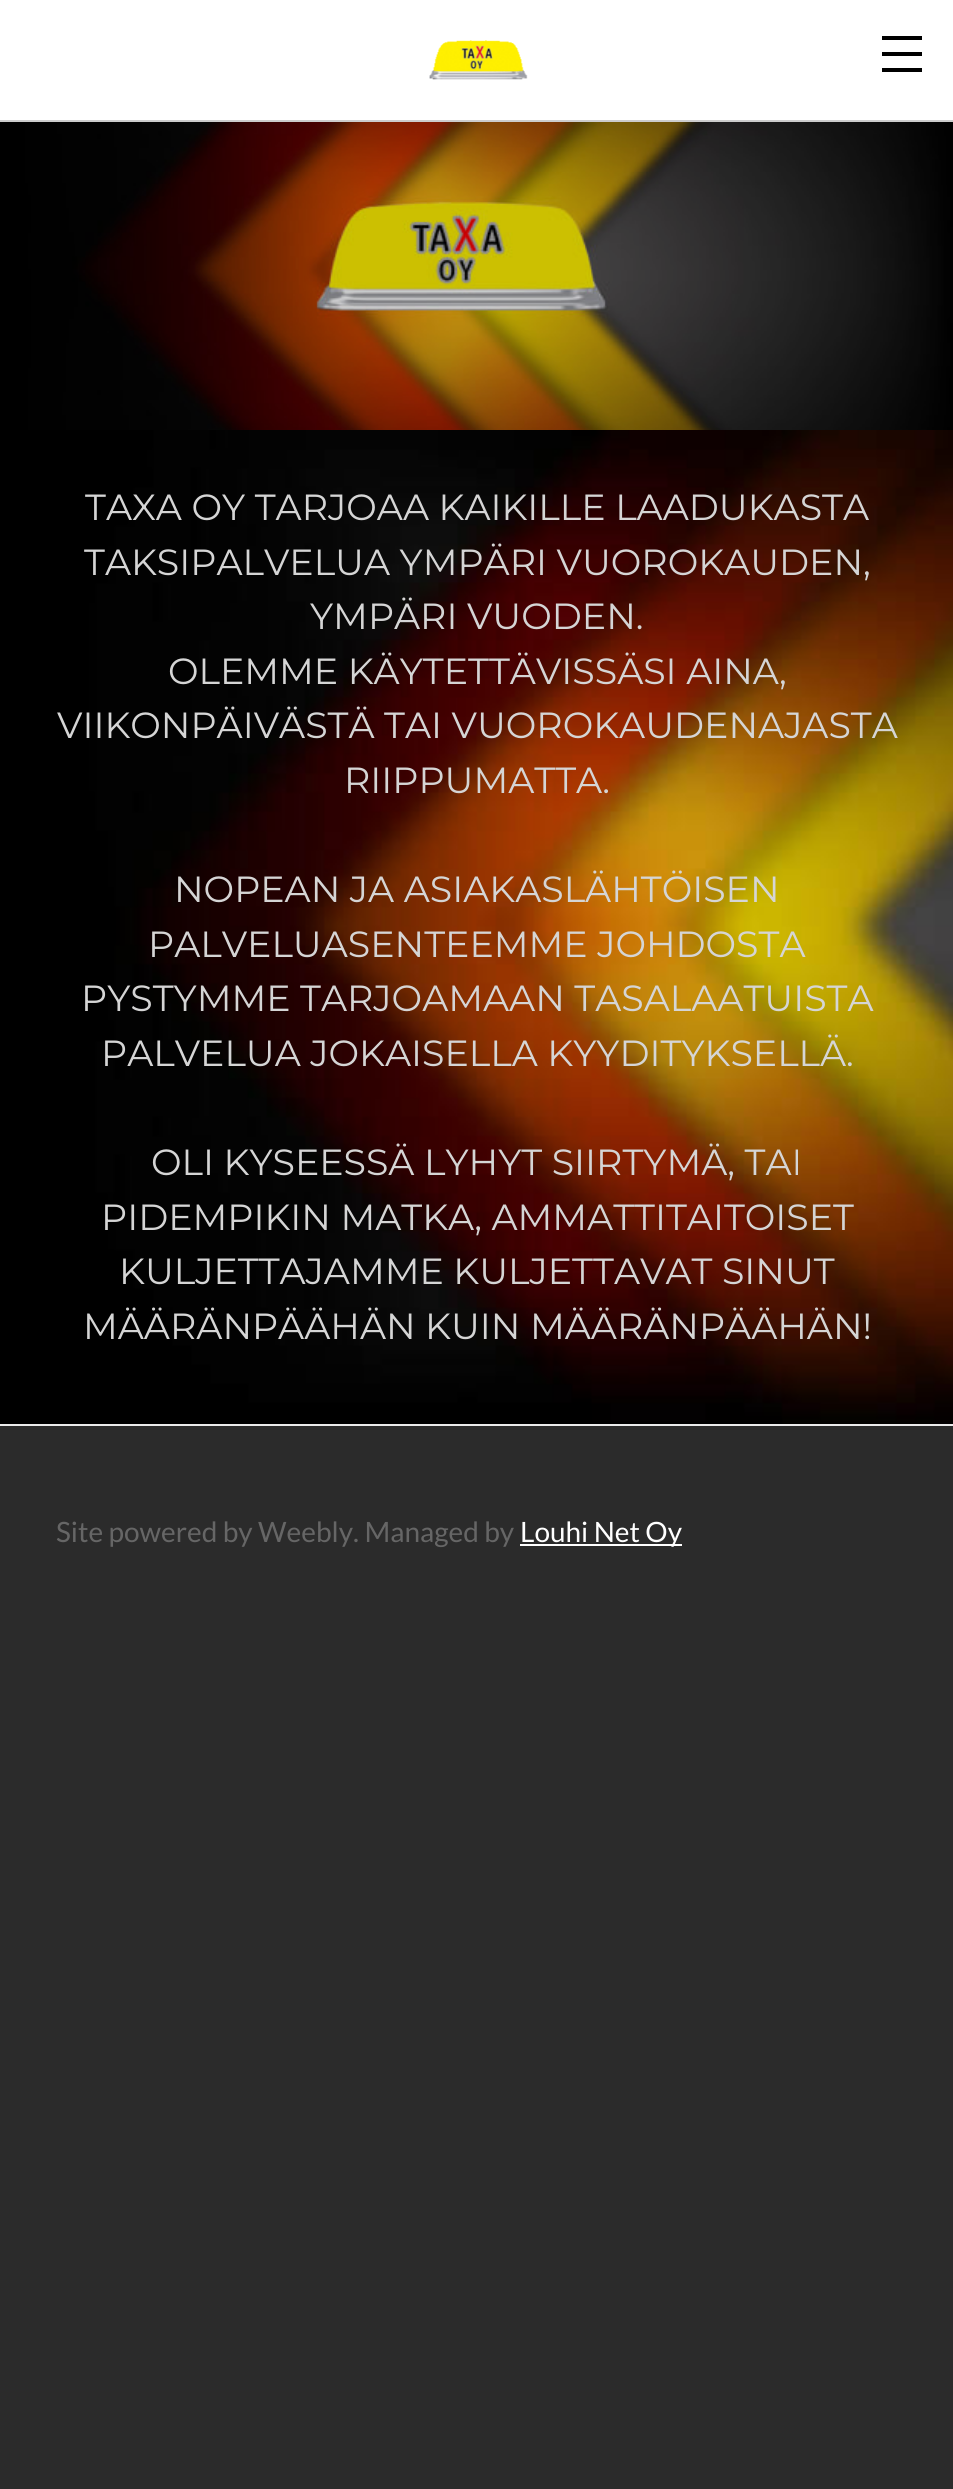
#include <cairo.h>
#include <math.h>
#include <stddef.h>

static cairo_t *c;
static void C(unsigned color){cairo_set_source_rgb(c, (color >> 16) / 255.0, (color >> 8 & 255) / 255.0, (color & 255) / 255.0);}
static void F(const char *family, double size, int italic, int bold){cairo_select_font_face(c, family, italic ? CAIRO_FONT_SLANT_ITALIC : CAIRO_FONT_SLANT_NORMAL,bold ? CAIRO_FONT_WEIGHT_BOLD : CAIRO_FONT_WEIGHT_NORMAL);cairo_set_font_size(c, size);}
static void T(double x, double y, const char *s){cairo_move_to(c, x, y);cairo_show_text(c, s);}
static void R(double x, double y, double w, double h){cairo_rectangle(c, x, y, w, h);cairo_fill(c);}
static void I(const char *path, double x, double y, double w, double h){cairo_surface_t *image = cairo_image_surface_create_from_png(path);cairo_save(c);cairo_set_source_surface(c, image, x, y);cairo_rectangle(c, x, y, w, h);cairo_fill(c);cairo_restore(c);cairo_surface_destroy(image);}
int main(void) {
cairo_surface_t *surface = cairo_image_surface_create(CAIRO_FORMAT_RGB24, 953, 2489);
c = cairo_create(surface);
cairo_font_options_t *options = cairo_font_options_create();
cairo_font_options_set_hint_metrics(options, CAIRO_HINT_METRICS_OFF);
cairo_font_options_set_hint_style(options, CAIRO_HINT_STYLE_NONE);
cairo_set_font_options(c, options);
cairo_set_miter_limit(c, 4);
C(0x2b2b2b);
cairo_paint(c);
C(0xffffff);
R(0,0,953,120);
C(0xcccccc);
R(0,120,953,2);
I("1.png",429,40,99,40);
C(0x000000);
R(882,52,40,4);
R(882,36,40,4);
R(882,68,40,4);
I("2.png",0,122,953,308);
I("3.png",0,430,953,994);
F("Montserrat Thin",36.4,0,0);
C(0xd5d5d5);
T(85,520,"TAXA OY TARJOAA KAIKILLE LAADUKASTA");
T(84,575,"TAKSIPALVELUA YMPÄRI VUOROKAUDEN,");
T(310,629,"YMPÄRI VUODEN.");
T(168,684,"OLEMME KÄYTETTÄVISSÄSI AINA,");
T(57,738,"VIIKONPÄIVÄSTÄ TAI VUOROKAUDENAJASTA");
T(344,793,"RIIPPUMATTA.");
T(174,902,"NOPEAN JA ASIAKASLÄHTÖISEN");
T(148,957,"PALVELUASENTEEMME JOHDOSTA");
T(81,1011,"PYSTYMME TARJOAMAAN TASALAATUISTA");
T(101,1066,"PALVELUA JOKAISELLA KYYDITYKSELLÄ.");
T(151,1175,"OLI KYSEESSÄ LYHYT SIIRTYMÄ, TAI");
T(101,1230,"PIDEMPIKIN MATKA, AMMATTITAITOISET");
T(119,1284,"KULJETTAJAMME KULJETTAVAT SINUT");
T(83,1339,"MÄÄRÄNPÄÄHÄN KUIN MÄÄRÄNPÄÄHÄN!");
C(0xebebeb);
R(0,1424,953,2);
F("Lato",28,0,0);
C(0x666666);
T(56,1542,"Site powered by Weebly. Managed by");
C(0xffffff);
R(520,1544,162,2);
T(520,1542,"Louhi Net Oy");
cairo_surface_write_to_png(surface, "o.png");
cairo_font_options_destroy(options);
cairo_destroy(c);
cairo_surface_destroy(surface);
return 0;
}
